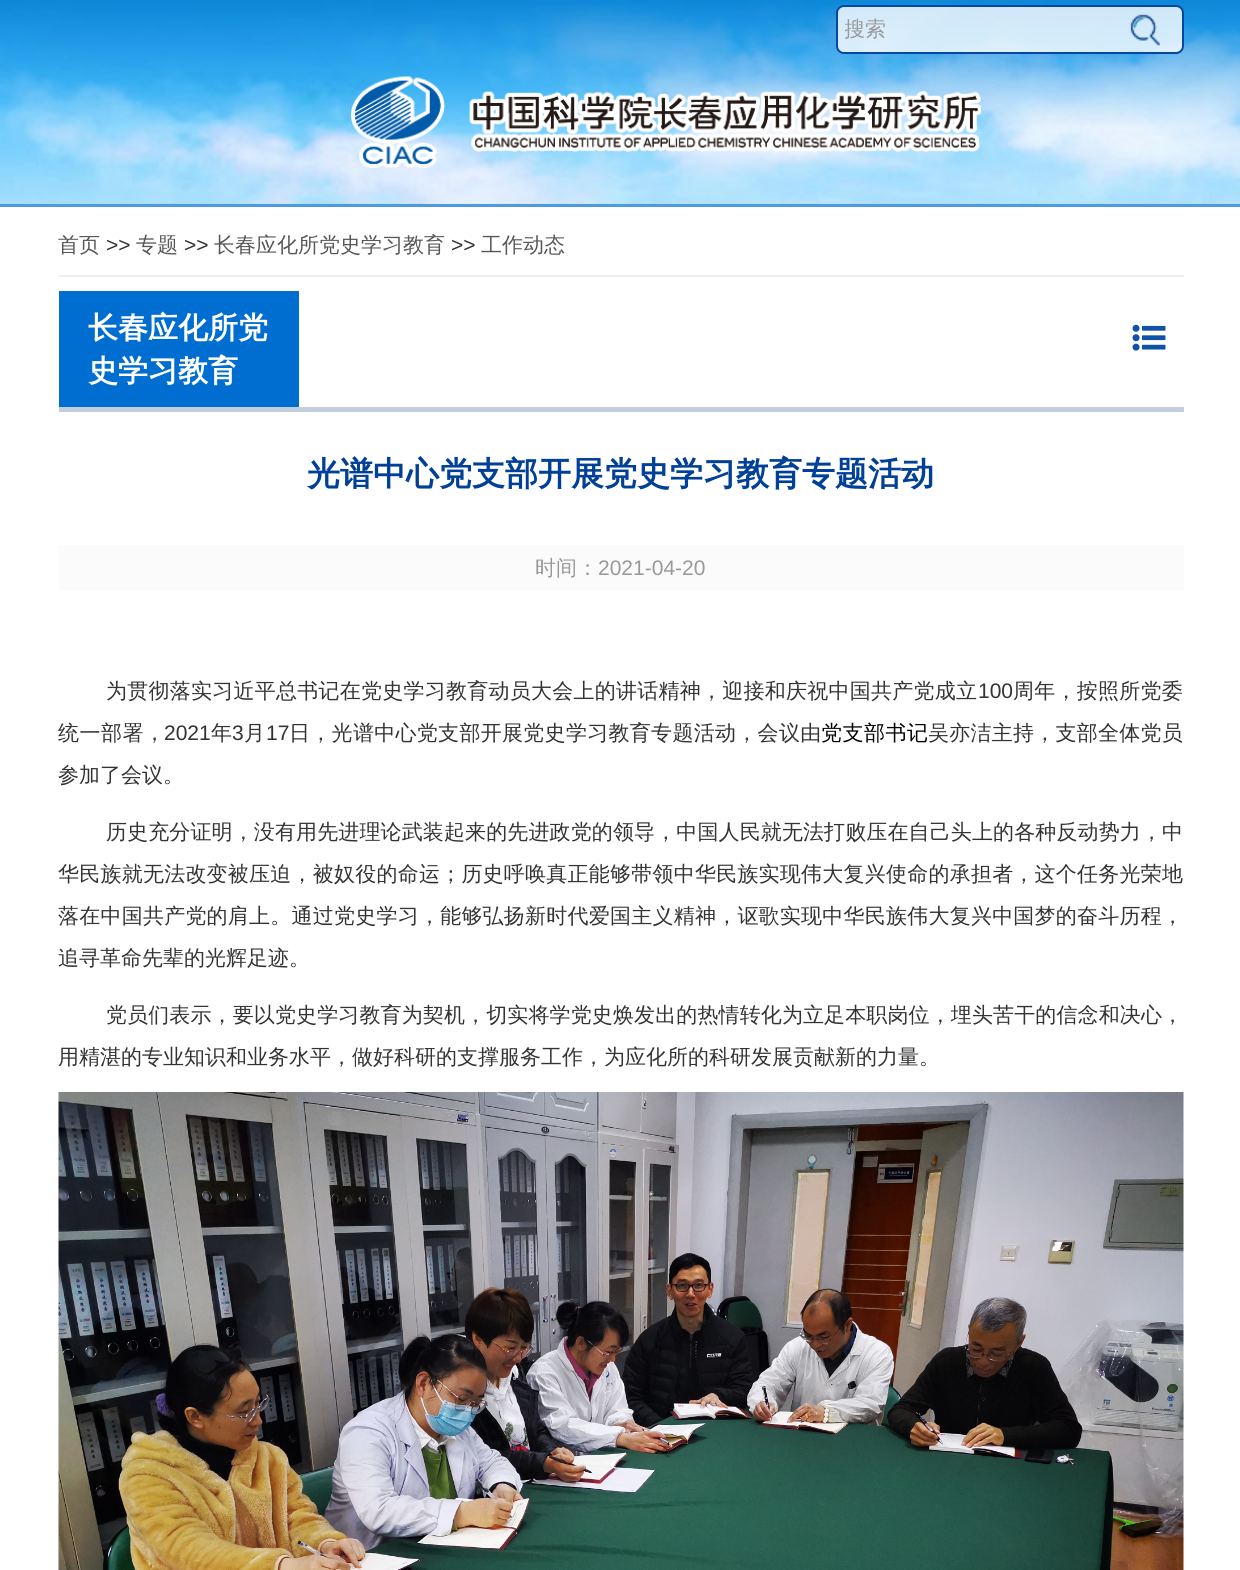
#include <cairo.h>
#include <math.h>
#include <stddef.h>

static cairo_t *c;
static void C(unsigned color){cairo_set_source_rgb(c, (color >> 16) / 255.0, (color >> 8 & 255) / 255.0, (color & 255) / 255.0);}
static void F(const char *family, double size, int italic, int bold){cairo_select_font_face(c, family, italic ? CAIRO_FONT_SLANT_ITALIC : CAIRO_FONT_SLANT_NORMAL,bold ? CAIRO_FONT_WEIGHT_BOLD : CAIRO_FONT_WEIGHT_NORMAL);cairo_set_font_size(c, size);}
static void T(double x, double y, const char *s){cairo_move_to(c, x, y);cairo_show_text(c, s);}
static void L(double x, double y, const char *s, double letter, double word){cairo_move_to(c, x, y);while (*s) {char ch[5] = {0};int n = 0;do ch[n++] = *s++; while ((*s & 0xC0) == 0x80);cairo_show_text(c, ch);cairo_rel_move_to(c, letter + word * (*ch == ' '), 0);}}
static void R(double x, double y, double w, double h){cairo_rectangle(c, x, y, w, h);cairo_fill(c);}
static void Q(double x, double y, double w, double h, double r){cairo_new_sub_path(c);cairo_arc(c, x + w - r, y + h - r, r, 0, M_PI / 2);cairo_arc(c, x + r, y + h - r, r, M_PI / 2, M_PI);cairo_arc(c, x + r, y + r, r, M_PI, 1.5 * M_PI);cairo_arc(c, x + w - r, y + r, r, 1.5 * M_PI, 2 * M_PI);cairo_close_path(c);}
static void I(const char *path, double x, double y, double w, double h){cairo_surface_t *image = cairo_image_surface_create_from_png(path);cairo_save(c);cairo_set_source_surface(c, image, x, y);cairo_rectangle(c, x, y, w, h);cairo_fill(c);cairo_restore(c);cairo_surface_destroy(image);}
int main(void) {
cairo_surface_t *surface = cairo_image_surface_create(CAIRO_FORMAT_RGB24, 1240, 1570);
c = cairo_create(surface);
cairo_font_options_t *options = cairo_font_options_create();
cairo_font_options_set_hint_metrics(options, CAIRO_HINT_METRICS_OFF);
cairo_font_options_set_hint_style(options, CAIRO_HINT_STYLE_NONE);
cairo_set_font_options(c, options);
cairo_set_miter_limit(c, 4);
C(0xffffff);
cairo_paint(c);
I("1.png",0,0,1240,204);
cairo_set_source_rgba(c,1,1,1,0.8);
Q(837,6,346,47,7);
cairo_fill_preserve(c);
C(0x09479c);
cairo_stroke(c);
cairo_save(c);
cairo_rectangle(c,845,17,271,27);
cairo_clip(c);
F("WenQuanYi Zen Hei Medium",21,0,0);
C(0x999999);
T(844,36,"搜索");
cairo_restore(c);
I("2.png",1130,14,30,32);
I("3.png",351,76,630,92);
C(0x4d9ade);
R(0,204,1240,3);
C(0xeeeeee);
R(59,275,1125,2);
F("WenQuanYi Zen Hei Medium",21,0,0);
C(0x575757);
T(58,252,"首页");
F("Liberation Sans",21,0,0);
C(0x333333);
T(106,252,">>");
F("WenQuanYi Zen Hei Medium",21,0,0);
C(0x575757);
T(136,252,"专题");
F("Liberation Sans",21,0,0);
C(0x333333);
T(184,252,">>");
F("WenQuanYi Zen Hei Medium",21,0,0);
C(0x575757);
T(214,252,"长春应化所党史学习教育");
F("Liberation Sans",21,0,0);
C(0x333333);
T(451,252,">>");
F("WenQuanYi Zen Hei Medium",21,0,0);
C(0x575757);
T(481,252,"工作动态");
C(0xc4ceda);
R(59,407,1125,5);
C(0x006ed0);
R(59,291,240,116);
F("WenQuanYi Zen Hei",30,0,1);
C(0xffffff);
T(88,338,"长春应化所党");
T(88,381,"史学习教育");
I("4.png",1132,324,34,27);
F("WenQuanYi Zen Hei",33,0,1);
C(0x004098);
T(307,485,"光谱中心党支部开展党史学习教育专题活动");
C(0xfbfbfb);
R(59,545,1125,45);
F("WenQuanYi Zen Hei Medium",21,0,0);
C(0x999999);
T(535,575,"时间：");
F("Liberation Sans",21,0,0);
T(598,575,"2021-04-20");
F("WenQuanYi Zen Hei Medium",21,0,0);
C(0x333333);
L(106,698,"为贯彻落实习近平总书记在党史学习教育动员大会上的讲话精神，迎接和庆祝中国共产党成立",.25,0);
F("Liberation Sans",21,0,0);
T(978,698,"100");
F("WenQuanYi Zen Hei Medium",21,0,0);
L(1013,698,"周年，按照所党委",.25,0);
L(58,740,"统一部署，",.5,0);
F("Liberation Sans",21,0,0);
T(164,740,"2021");
F("WenQuanYi Zen Hei Medium",21,0,0);
T(211,740,"年");
F("Liberation Sans",21,0,0);
T(232,740,"3");
F("WenQuanYi Zen Hei Medium",21,0,0);
T(244,740,"月");
F("Liberation Sans",21,0,0);
T(266,740,"17");
F("WenQuanYi Zen Hei Medium",21,0,0);
L(289,740,"日，光谱中心党支部开展党史学习教育专题活动，会议由",.3,0);
C(0x000000);
L(821,740,"党支部书记",.5,0);
C(0x333333);
L(928,740,"吴亦洁主持，支部全体党员",.25,0);
T(58,782,"参加了会议。");
L(106,839,"历史充分证明，没有用先进理论武装起来的先进政党的领导，中国人民就无法打败压在自己头上的各种反动势力，中",.12,0);
L(58,881,"华民族就无法改变被压迫，被奴役的命运；历史呼唤真正能够带领中华民族实现伟大复兴使命的承担者，这个任务光荣地",.23,0);
L(58,923,"落在中国共产党的肩上。通过党史学习，能够弘扬新时代爱国主义精神，讴歌实现中华民族伟大复兴中国梦的奋斗历程，",.23,0);
T(58,965,"追寻革命先辈的光辉足迹。");
L(106,1022,"党员们表示，要以党史学习教育为契机，切实将学党史焕发出的热情转化为立足本职岗位，埋头苦干的信念和决心，",.12,0);
T(58,1064,"用精湛的专业知识和业务水平，做好科研的支撑服务工作，为应化所的科研发展贡献新的力量。");
I("5.png",58,1092,1126,478);
cairo_surface_write_to_png(surface, "o.png");
cairo_font_options_destroy(options);
cairo_destroy(c);
cairo_surface_destroy(surface);
return 0;
}
